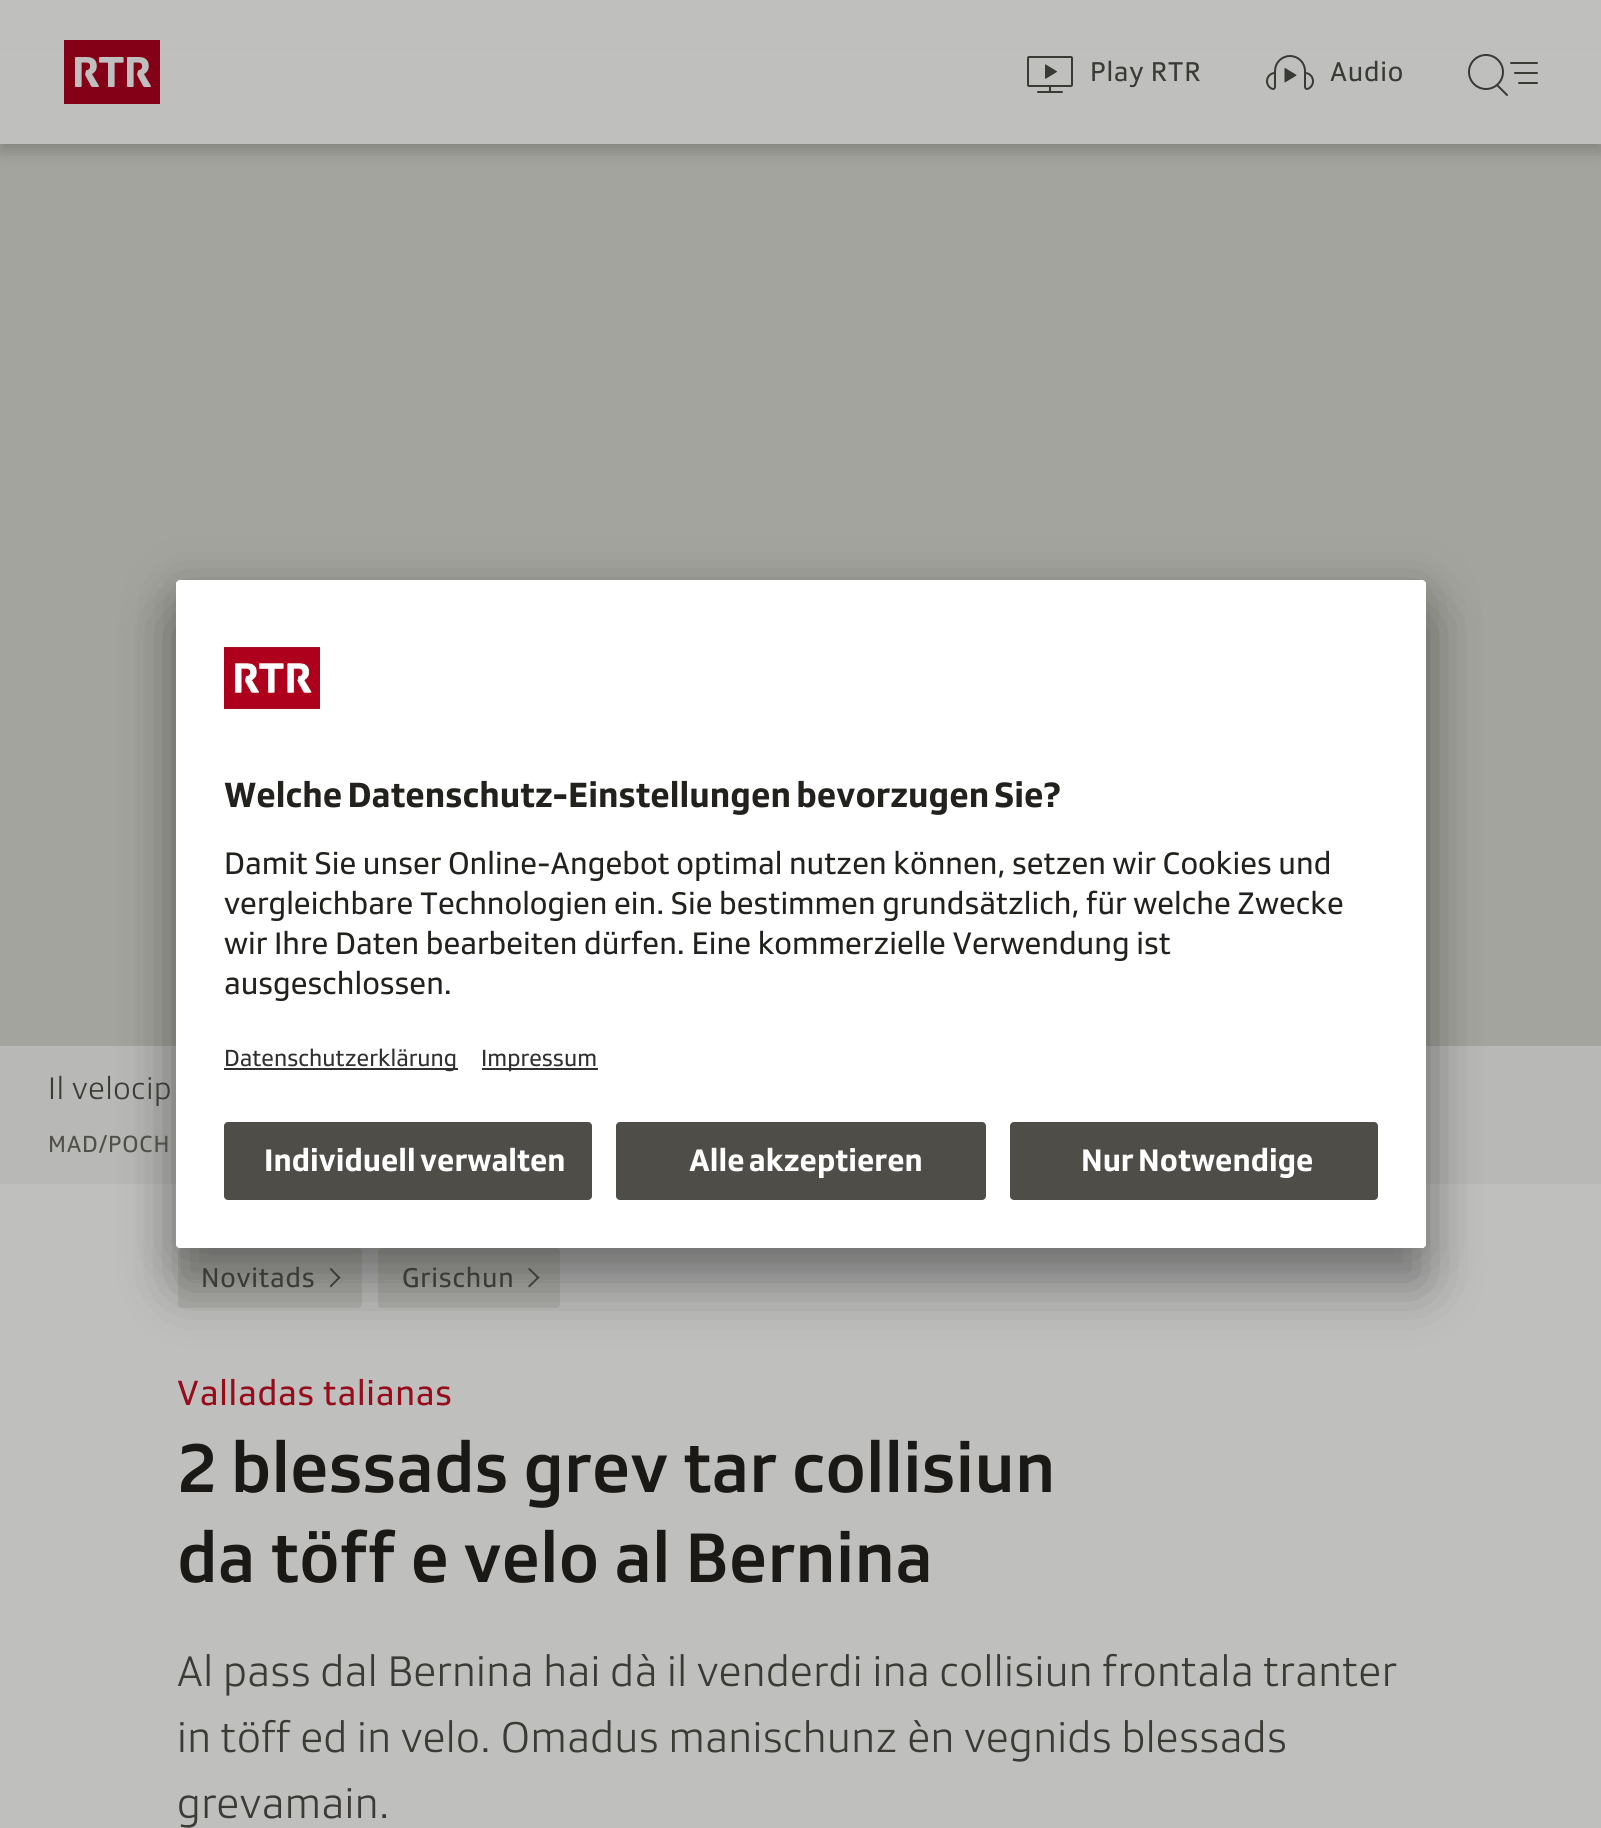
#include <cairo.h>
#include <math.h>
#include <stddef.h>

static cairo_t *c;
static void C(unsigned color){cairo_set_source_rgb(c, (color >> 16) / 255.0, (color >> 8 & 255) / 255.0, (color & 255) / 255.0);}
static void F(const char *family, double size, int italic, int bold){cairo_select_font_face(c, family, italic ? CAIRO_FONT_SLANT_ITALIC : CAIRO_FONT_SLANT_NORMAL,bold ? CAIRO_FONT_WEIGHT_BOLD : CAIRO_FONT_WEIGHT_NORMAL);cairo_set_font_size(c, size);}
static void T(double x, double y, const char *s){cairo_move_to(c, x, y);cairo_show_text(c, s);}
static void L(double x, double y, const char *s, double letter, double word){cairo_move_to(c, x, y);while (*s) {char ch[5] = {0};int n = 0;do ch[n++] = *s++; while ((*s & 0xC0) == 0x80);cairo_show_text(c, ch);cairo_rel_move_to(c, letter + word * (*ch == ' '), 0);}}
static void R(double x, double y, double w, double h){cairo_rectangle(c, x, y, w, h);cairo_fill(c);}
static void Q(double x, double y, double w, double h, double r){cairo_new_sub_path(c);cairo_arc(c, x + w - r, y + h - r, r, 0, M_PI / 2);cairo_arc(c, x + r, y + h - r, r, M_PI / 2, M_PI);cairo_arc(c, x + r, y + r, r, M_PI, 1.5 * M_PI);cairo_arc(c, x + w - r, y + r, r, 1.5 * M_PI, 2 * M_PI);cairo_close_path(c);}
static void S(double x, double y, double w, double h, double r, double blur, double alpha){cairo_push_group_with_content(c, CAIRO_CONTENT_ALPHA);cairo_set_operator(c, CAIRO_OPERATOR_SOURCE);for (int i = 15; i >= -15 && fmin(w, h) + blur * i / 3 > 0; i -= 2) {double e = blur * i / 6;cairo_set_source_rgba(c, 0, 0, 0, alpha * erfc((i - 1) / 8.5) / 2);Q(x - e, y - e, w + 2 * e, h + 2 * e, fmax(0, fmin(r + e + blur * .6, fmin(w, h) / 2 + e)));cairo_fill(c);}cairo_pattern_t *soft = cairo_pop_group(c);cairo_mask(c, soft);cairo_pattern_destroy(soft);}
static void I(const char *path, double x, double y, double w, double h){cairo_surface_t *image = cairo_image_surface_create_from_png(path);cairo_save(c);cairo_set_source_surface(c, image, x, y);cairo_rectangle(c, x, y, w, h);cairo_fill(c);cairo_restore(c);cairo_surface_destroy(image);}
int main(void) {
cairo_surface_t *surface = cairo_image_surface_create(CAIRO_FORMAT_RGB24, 1601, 1828);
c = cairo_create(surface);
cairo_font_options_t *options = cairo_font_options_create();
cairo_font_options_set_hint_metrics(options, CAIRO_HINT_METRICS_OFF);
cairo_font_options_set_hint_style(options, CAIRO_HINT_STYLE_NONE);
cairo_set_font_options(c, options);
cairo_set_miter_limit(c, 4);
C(0xbfbfbe);
cairo_paint(c);
C(0xa4a49e);
R(0,144,1601,902);
C(0x000000);
S(0,60,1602,84,0,8,.08);
S(0,68,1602,84,0,8,.16);
C(0xbfbfbe);
R(0,51,1601,93);
I("1.png",64,40,96,64);
I("2.png",1027,56,46,37);
F("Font",28,0,0);
C(0x3b3a35);
L(1090,81,"Play RTR",.75,0);
I("3.png",1266,55,48,35);
L(1330,81,"Audio",.75,0);
I("4.png",1468,54,70,42);
C(0xb8b8b6);
R(0,1046,1601,138);
C(0xb0b0ac);
Q(178,1248,184,60,4);
cairo_fill(c);
C(0x504f48);
cairo_new_path(c);
cairo_move_to(c,329.5,1269);
cairo_line_to(c,331,1268);
cairo_line_to(c,340.5,1277.5);
cairo_line_to(c,339,1279);
cairo_close_path(c);
cairo_fill(c);
cairo_new_path(c);
cairo_move_to(c,329.5,1286);
cairo_line_to(c,339,1276.5);
cairo_line_to(c,340.5,1277.5);
cairo_line_to(c,331,1287.5);
cairo_close_path(c);
cairo_fill(c);
C(0xb0b0ac);
Q(378,1248,182,60,4);
cairo_fill(c);
C(0x504f48);
cairo_new_path(c);
cairo_move_to(c,528,1269);
cairo_line_to(c,529.5,1268);
cairo_line_to(c,539.5,1277.5);
cairo_line_to(c,538,1279);
cairo_close_path(c);
cairo_fill(c);
cairo_new_path(c);
cairo_move_to(c,528,1286);
cairo_line_to(c,538,1276.5);
cairo_line_to(c,539.5,1277.5);
cairo_line_to(c,529.5,1287.5);
cairo_close_path(c);
cairo_fill(c);
C(0x000000);
S(176,620,1250,668,4,28,.3);
S(176,590,1250,668,4,26,.22);
C(0xffffff);
Q(176,580,1250,668,4);
cairo_fill(c);
cairo_save(c);
cairo_new_path(c);
cairo_move_to(c,180,580);
cairo_line_to(c,1422,580);
cairo_curve_to(c,1424,580,1426,582,1426,584);
cairo_line_to(c,1426,1106);
cairo_line_to(c,176,1106);
cairo_line_to(c,176,584);
cairo_curve_to(c,176,582,178,580,180,580);
cairo_close_path(c);
cairo_clip(c);
R(176,582,1250,524);
cairo_restore(c);
I("5.png",224,647,96,62);
F("Font",36,0,1);
C(0x22211d);
L(224,807,"Welche Datenschutz-Einstellungen bevorzugen Sie?",0,-2);
F("Font",32,0,0);
T(224,874,"Damit Sie unser Online-Angebot optimal nutzen können, setzen wir Cookies und");
T(224,914,"vergleichbare Technologien ein. Sie bestimmen grundsätzlich, für welche Zwecke");
T(224,954,"wir Ihre Daten bearbeiten dürfen. Eine kommerzielle Verwendung ist");
T(224,994,"ausgeschlossen.");
C(0x303030);
R(224,1068,234,2);
F("Font",24,0,0);
T(224,1066,"Datenschutzerklärung");
R(482,1068,116,2);
T(481,1066,"Impressum");
C(0xffffff);
cairo_new_path(c);
cairo_move_to(c,176,1106);
cairo_line_to(c,1426,1106);
cairo_line_to(c,1426,1244);
cairo_curve_to(c,1426,1246,1424,1248,1422,1248);
cairo_line_to(c,180,1248);
cairo_curve_to(c,178,1248,176,1246,176,1244);
cairo_close_path(c);
cairo_fill(c);
C(0x4e4d47);
Q(224,1122,368,78,4);
cairo_fill(c);
F("Font",32,0,1);
C(0xffffff);
L(264,1171,"Individuell verwalten",0,-2);
C(0x4e4d47);
Q(616,1122,370,78,4);
cairo_fill(c);
C(0xffffff);
L(689,1171,"Alle akzeptieren",0,-2);
C(0x4e4d47);
Q(1010,1122,368,78,4);
cairo_fill(c);
C(0xffffff);
L(1081,1171,"Nur Notwendige",0,-2);
F("Font Light",32,0,0);
C(0x3b3a35);
L(48,1099,"Il velocip",.75,0);
F("Font",24,0,0);
C(0x504f48);
L(48,1152,"MAD/POCH",.75,0);
F("Font",28,0,0);
C(0x3b3a35);
L(201,1287,"Novitads",.75,0);
L(402,1287,"Grischun",.75,0);
F("Font",36,0,0);
C(0x970c1b);
L(177,1405,"Valladas talianas",.75,0);
F("Font Medium",72,0,0);
C(0x1a1916);
T(177,1492,"2 blessads grev tar collisiun");
T(177,1582,"da töff e velo al Bernina");
F("Font Light",44,0,0);
C(0x3b3a35);
L(177,1686,"Al pass dal Bernina hai dà il venderdi ina collisiun frontala tranter",.4,0);
L(177,1752,"in töff ed in velo. Omadus manischunz èn vegnids blessads",.4,0);
L(177,1818,"grevamain.",.4,0);
cairo_surface_write_to_png(surface, "o.png");
cairo_font_options_destroy(options);
cairo_destroy(c);
cairo_surface_destroy(surface);
return 0;
}
